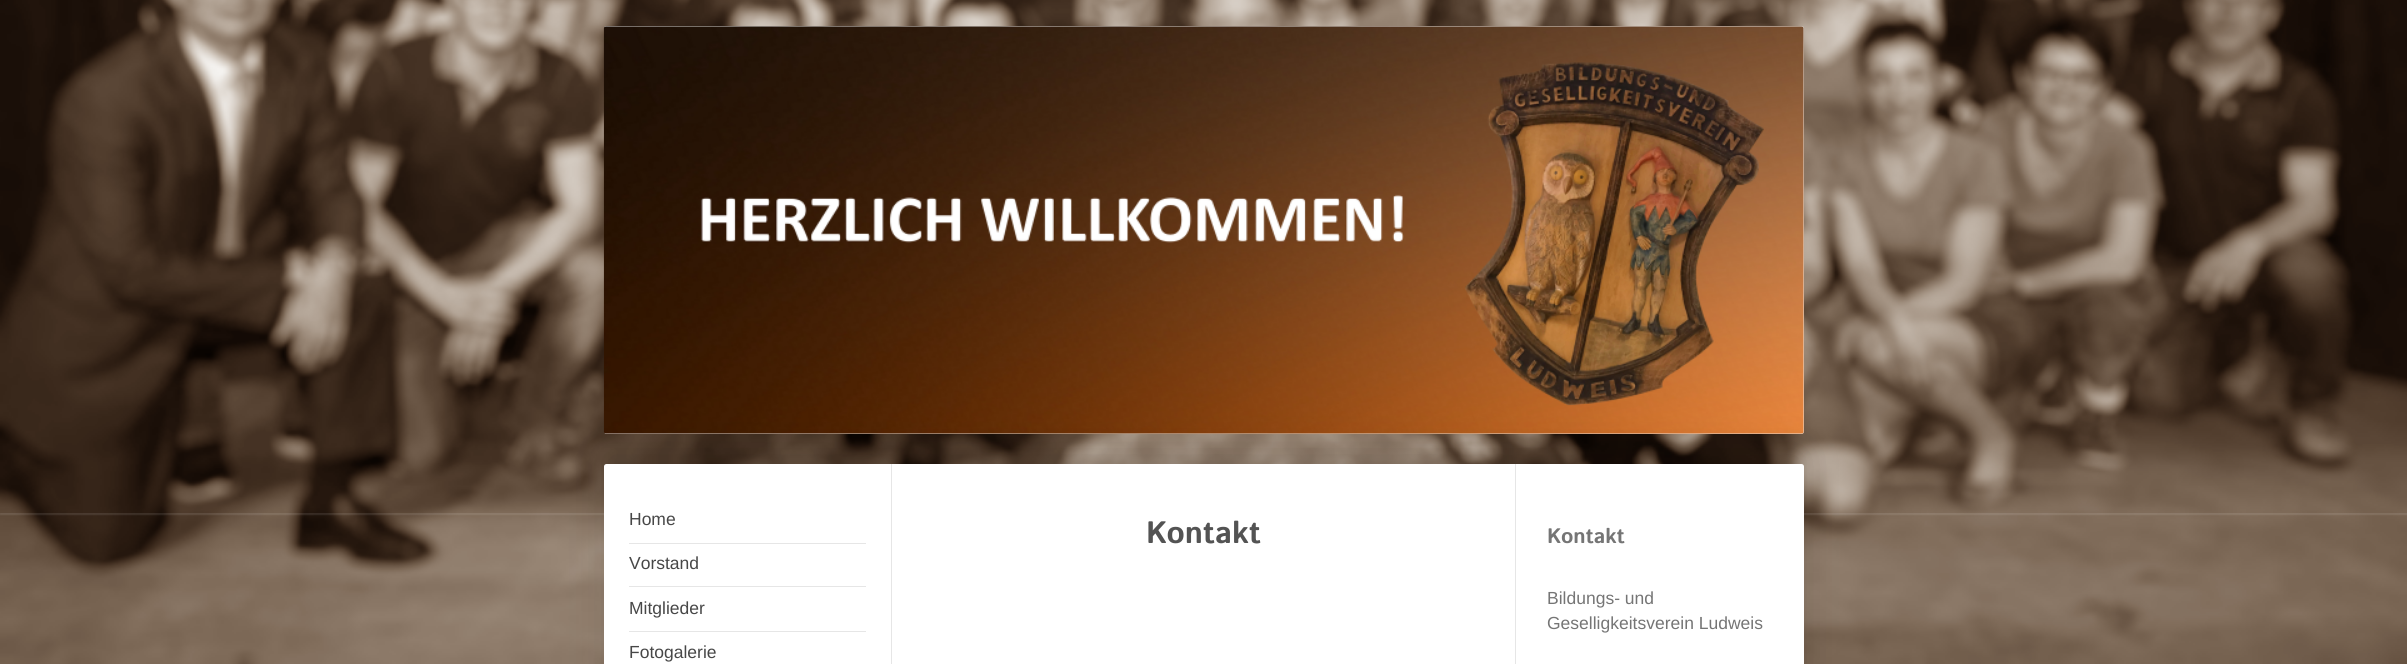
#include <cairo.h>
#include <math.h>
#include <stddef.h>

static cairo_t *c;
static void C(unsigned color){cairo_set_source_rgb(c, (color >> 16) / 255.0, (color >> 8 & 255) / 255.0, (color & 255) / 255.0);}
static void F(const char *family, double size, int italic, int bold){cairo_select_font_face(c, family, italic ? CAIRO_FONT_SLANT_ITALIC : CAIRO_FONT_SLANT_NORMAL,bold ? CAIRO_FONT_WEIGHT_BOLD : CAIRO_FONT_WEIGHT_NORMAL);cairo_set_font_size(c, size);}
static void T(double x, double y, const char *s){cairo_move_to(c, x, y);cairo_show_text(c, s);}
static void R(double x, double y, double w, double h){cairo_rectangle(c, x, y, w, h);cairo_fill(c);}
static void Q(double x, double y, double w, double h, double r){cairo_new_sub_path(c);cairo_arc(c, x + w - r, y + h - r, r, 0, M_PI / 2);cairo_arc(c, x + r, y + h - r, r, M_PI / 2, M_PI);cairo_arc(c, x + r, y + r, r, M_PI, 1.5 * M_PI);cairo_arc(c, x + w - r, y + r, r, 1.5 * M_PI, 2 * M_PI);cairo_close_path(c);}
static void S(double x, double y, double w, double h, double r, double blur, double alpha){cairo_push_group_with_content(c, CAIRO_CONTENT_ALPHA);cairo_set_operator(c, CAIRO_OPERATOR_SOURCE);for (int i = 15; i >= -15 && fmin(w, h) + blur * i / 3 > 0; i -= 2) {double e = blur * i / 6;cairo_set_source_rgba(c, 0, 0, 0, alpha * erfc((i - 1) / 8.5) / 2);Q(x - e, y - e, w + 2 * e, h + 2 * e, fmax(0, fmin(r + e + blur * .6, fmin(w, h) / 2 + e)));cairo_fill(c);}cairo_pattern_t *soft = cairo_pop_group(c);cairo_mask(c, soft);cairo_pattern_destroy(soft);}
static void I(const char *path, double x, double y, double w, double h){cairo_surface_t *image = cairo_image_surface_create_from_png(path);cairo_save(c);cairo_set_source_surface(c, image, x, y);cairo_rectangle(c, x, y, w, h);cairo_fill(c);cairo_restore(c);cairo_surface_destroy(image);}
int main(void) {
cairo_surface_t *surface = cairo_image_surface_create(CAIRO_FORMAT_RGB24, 2407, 664);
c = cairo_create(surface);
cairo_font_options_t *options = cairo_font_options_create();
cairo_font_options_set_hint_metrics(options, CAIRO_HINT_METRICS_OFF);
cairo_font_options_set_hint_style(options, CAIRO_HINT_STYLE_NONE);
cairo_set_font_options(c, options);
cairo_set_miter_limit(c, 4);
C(0xffffff);
cairo_paint(c);
I("1.png",0,0,2407,664);
cairo_save(c);
cairo_set_fill_rule(c,CAIRO_FILL_RULE_EVEN_ODD);
cairo_new_path(c);
cairo_move_to(c,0,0);
cairo_line_to(c,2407,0);
cairo_line_to(c,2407,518);
cairo_line_to(c,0,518);
cairo_close_path(c);
cairo_move_to(c,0,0);
cairo_line_to(c,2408,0);
cairo_line_to(c,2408,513);
cairo_line_to(c,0,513);
cairo_close_path(c);
cairo_clip(c);
S(0,3,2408,512,0,.5,.1);
cairo_restore(c);
C(0xeeeeee);
Q(604,26,1200,408,2.5);
cairo_fill(c);
I("2.png",603,26,1201,408);
C(0x000000);
S(604,451,1200,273,2.5,19,.1);
C(0xffffff);
Q(604,464,1200,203,2.5);
cairo_fill(c);
C(0xe6e6e6);
R(629,543,237,1);
F("Liberation Sans",17.5,0,0);
C(0x474747);
T(629,525,"Home");
C(0xe6e6e6);
R(629,586,237,1);
C(0x474747);
T(629,569,"Vorstand");
C(0xe6e6e6);
R(629,631,237,1);
C(0x474747);
T(629,614,"Mitglieder");
T(629,658,"Fotogalerie");
C(0xe6e6e6);
R(1515,464,1,200);
R(891,464,1,200);
F("Istok Web",31,0,1);
C(0x535353);
T(1146,543,"Kontakt");
F("Istok Web",21,0,1);
C(0x757575);
T(1547,543,"Kontakt");
F("Liberation Sans",17.5,0,0);
T(1547,604,"Bildungs- und");
T(1547,629,"Geselligkeitsverein Ludweis");
cairo_surface_write_to_png(surface, "o.png");
cairo_font_options_destroy(options);
cairo_destroy(c);
cairo_surface_destroy(surface);
return 0;
}
